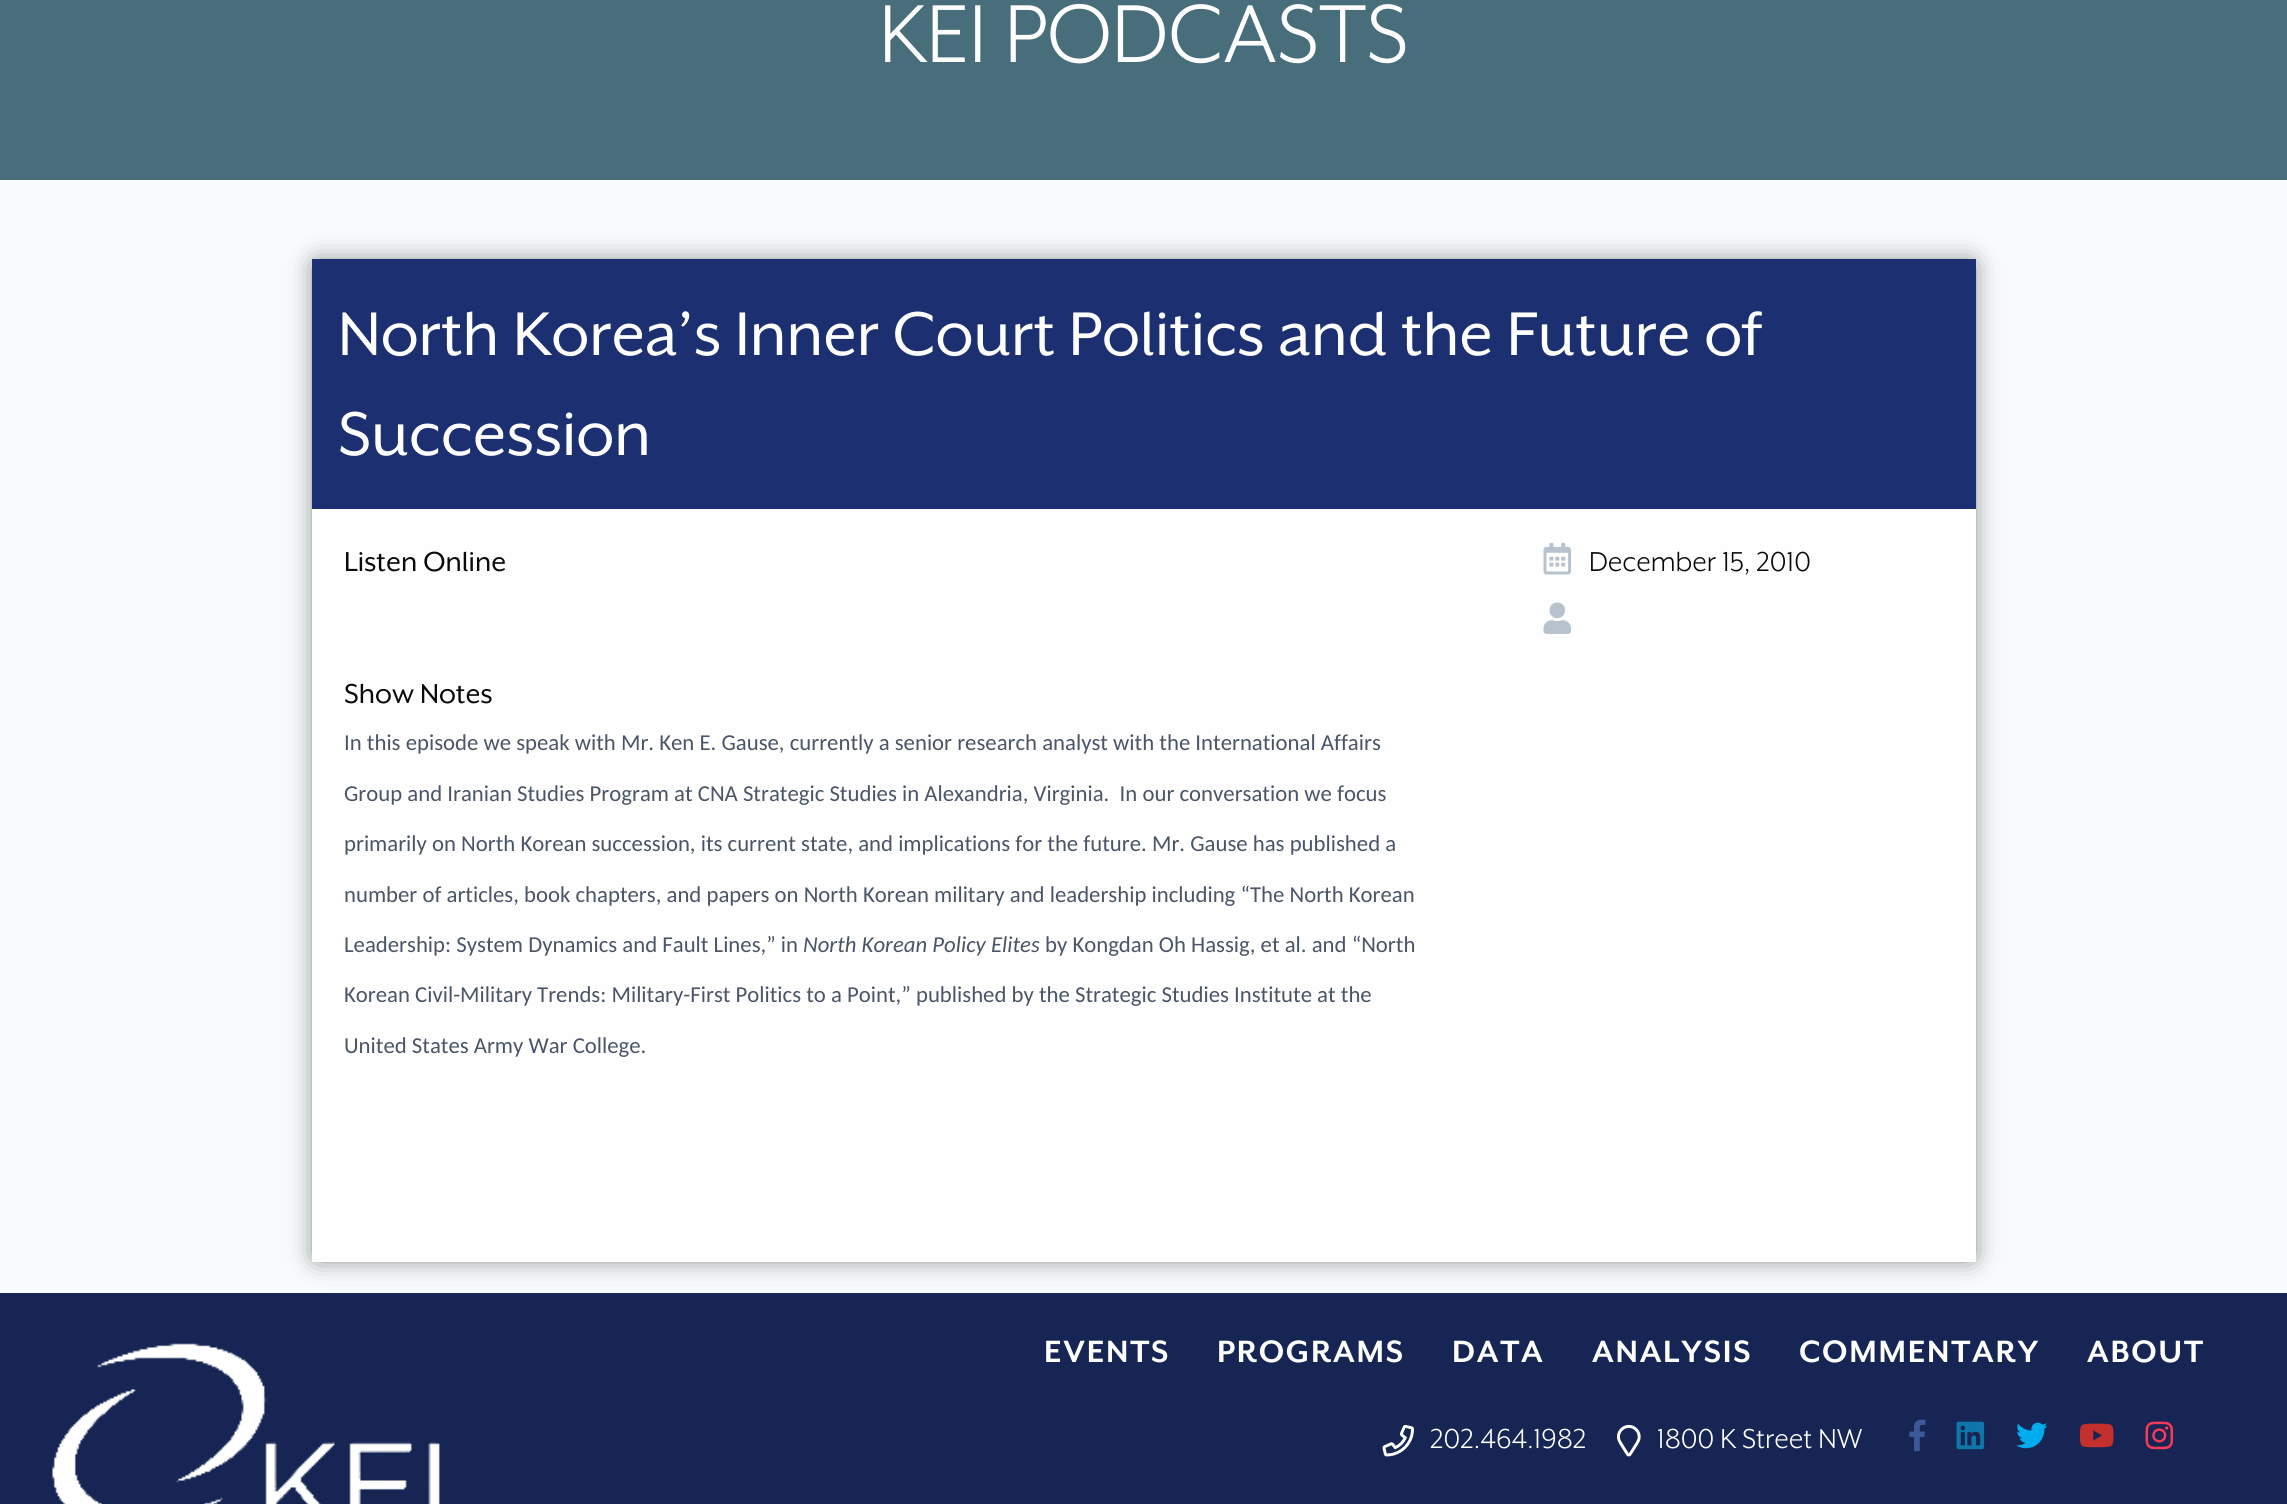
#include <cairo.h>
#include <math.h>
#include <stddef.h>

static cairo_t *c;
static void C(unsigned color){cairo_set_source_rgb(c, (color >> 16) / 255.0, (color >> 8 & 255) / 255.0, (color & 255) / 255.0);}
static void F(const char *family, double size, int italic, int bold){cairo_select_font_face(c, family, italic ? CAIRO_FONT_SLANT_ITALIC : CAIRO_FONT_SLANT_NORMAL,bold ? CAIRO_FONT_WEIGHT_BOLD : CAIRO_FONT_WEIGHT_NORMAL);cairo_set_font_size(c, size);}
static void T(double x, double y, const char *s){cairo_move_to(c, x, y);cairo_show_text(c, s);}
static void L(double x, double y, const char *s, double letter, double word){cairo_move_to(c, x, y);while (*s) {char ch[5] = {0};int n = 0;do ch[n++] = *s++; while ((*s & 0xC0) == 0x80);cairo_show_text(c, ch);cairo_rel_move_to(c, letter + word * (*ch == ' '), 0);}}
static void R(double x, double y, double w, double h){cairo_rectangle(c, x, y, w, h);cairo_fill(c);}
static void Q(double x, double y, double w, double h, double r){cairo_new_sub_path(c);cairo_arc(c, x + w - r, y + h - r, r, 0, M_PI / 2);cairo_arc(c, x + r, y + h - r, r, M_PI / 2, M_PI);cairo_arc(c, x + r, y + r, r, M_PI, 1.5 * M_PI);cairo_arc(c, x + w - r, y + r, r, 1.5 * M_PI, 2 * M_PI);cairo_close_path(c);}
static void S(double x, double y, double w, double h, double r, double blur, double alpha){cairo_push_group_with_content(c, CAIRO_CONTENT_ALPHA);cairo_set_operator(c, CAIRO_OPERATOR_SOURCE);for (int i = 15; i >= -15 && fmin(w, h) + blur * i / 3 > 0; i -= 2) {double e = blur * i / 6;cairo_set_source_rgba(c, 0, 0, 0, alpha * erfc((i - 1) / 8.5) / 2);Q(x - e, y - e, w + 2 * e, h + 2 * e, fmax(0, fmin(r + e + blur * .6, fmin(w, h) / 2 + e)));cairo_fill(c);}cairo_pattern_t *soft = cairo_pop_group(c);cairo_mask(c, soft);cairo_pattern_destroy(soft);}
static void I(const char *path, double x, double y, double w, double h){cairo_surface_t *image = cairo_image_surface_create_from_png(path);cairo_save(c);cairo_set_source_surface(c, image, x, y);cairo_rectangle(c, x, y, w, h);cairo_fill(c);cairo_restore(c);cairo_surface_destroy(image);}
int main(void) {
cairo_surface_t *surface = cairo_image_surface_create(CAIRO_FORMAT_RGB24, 2287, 1504);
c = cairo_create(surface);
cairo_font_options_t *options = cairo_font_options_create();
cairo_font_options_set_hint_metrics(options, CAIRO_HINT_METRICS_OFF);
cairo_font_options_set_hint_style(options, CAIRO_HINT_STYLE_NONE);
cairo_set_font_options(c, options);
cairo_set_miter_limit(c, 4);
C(0xf7fbfc);
cairo_paint(c);
C(0x486d7b);
R(0,0,2287,180);
F("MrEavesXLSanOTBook",94.5,0,0);
C(0xfefefe);
T(879,62,"KEI PODCASTS");
C(0x162553);
R(0,1293,2287,211);
C(0x000000);
S(317,264,1654,993,0,13,.6);
C(0xfefefe);
R(312,509,1664,753);
C(0x1b2f71);
R(312,259,1664,250);
F("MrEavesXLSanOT",70.9,0,0);
C(0xfefefe);
T(338,355,"North Korea’s Inner Court Politics and the Future of");
T(338,455,"Succession");
F("MrEavesXLSanOT",31.5,0,0);
C(0x0a0a0a);
T(344,571,"Listen Online");
T(344,703,"Show Notes");
F("Carlito",22.75,0,0);
C(0x4a5568);
T(344,750,"In this episode we speak with Mr. Ken E. Gause, currently a senior research analyst with the International Affairs");
T(344,801,"Group and Iranian Studies Program at CNA Strategic Studies in Alexandria, Virginia.  In our conversation we focus");
T(344,851,"primarily on North Korean succession, its current state, and implications for the future. Mr. Gause has published a");
T(344,902,"number of articles, book chapters, and papers on North Korean military and leadership including “The North Korean");
T(344,952,"Leadership: System Dynamics and Fault Lines,” in");
F("Carlito",22.75,1,0);
T(803,952,"North Korean Policy Elites");
F("Carlito",22.75,0,0);
T(1045,952,"by Kongdan Oh Hassig, et al. and “North");
T(344,1002,"Korean Civil-Military Trends: Military-First Politics to a Point,” published by the Strategic Studies Institute at the");
T(344,1053,"United States Army War College.");
I("1.png",1543,542,29,33);
F("MrEavesXLSanOTBook",31.5,0,0);
C(0x0a0a0a);
T(1589,571,"December 15, 2010");
I("2.png",1543,602,29,32);
I("3.png",52,1343,388,161);
F("MrEavesXLSanOT",35.5,0,1);
C(0xfefefe);
L(1044,1362,"EVENTS",1.75,0);
L(1217,1362,"PROGRAMS",1.75,0);
L(1452,1362,"DATA",1.75,0);
L(1592,1362,"ANALYSIS",1.75,0);
L(1799,1362,"COMMENTARY",1.75,0);
L(2087,1362,"ABOUT",1.75,0);
I("4.png",1382,1424,32,33);
F("MrEavesXLSanOTBook",31.5,0,0);
T(1430,1448,"202.464.1982");
I("5.png",1617,1424,24,33);
T(1657,1448,"1800 K Street NW");
I("6.png",1909,1419,17,33);
I("7.png",1956,1421,29,29);
I("8.png",2016,1422,32,27);
I("9.png",2079,1423,35,25);
I("10.png",2145,1421,29,29);
cairo_surface_write_to_png(surface, "o.png");
cairo_font_options_destroy(options);
cairo_destroy(c);
cairo_surface_destroy(surface);
return 0;
}
